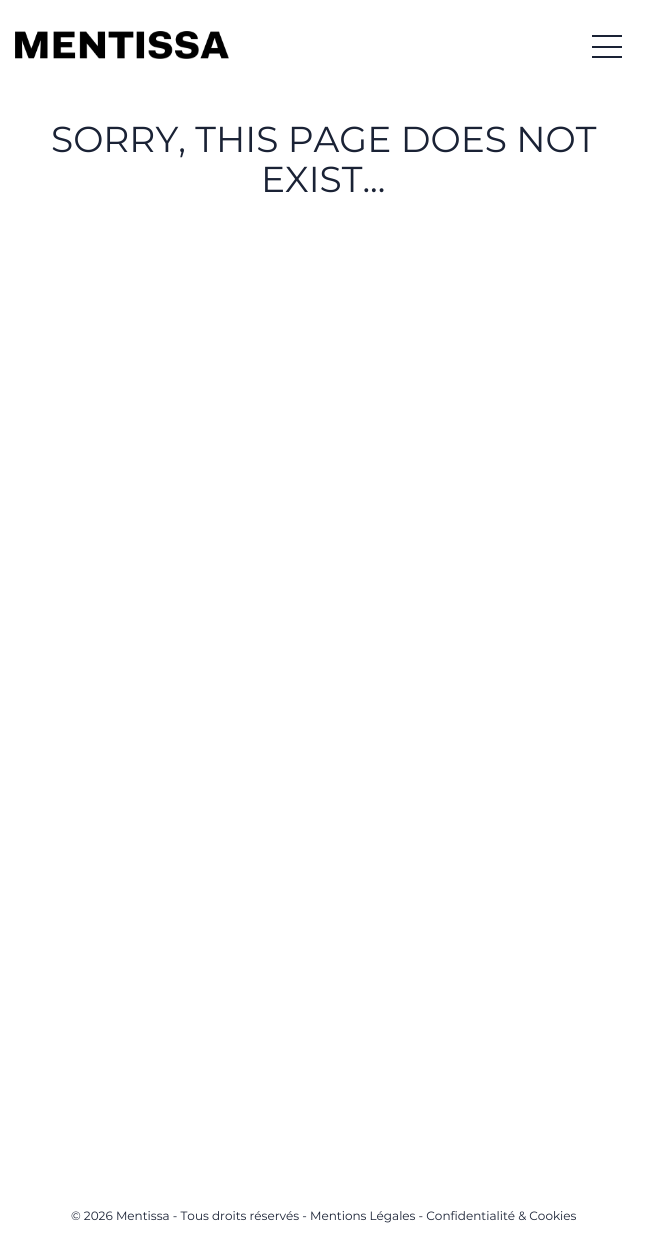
#include <cairo.h>
#include <math.h>
#include <stddef.h>

static cairo_t *c;
static void C(unsigned color){cairo_set_source_rgb(c, (color >> 16) / 255.0, (color >> 8 & 255) / 255.0, (color & 255) / 255.0);}
static void F(const char *family, double size, int italic, int bold){cairo_select_font_face(c, family, italic ? CAIRO_FONT_SLANT_ITALIC : CAIRO_FONT_SLANT_NORMAL,bold ? CAIRO_FONT_WEIGHT_BOLD : CAIRO_FONT_WEIGHT_NORMAL);cairo_set_font_size(c, size);}
static void T(double x, double y, const char *s){cairo_move_to(c, x, y);cairo_show_text(c, s);}
static void R(double x, double y, double w, double h){cairo_rectangle(c, x, y, w, h);cairo_fill(c);}
static void I(const char *path, double x, double y, double w, double h){cairo_surface_t *image = cairo_image_surface_create_from_png(path);cairo_save(c);cairo_set_source_surface(c, image, x, y);cairo_rectangle(c, x, y, w, h);cairo_fill(c);cairo_restore(c);cairo_surface_destroy(image);}
int main(void) {
cairo_surface_t *surface = cairo_image_surface_create(CAIRO_FORMAT_RGB24, 647, 1254);
c = cairo_create(surface);
cairo_font_options_t *options = cairo_font_options_create();
cairo_font_options_set_hint_metrics(options, CAIRO_HINT_METRICS_OFF);
cairo_font_options_set_hint_style(options, CAIRO_HINT_STYLE_NONE);
cairo_set_font_options(c, options);
cairo_set_miter_limit(c, 4);
C(0xffffff);
cairo_paint(c);
I("1.png",15,31,214,28);
C(0x1a2235);
R(592,35,30,2);
R(592,46,30,2);
R(592,56,30,2);
F("Montserrat",36,0,0);
T(51,152,"SORRY, THIS PAGE DOES NOT");
T(261,192,"EXIST...");
F("Montserrat",12,0,0);
T(71,1220,"© 2026 Mentissa - Tous droits réservés - Mentions Légales - Confidentialité & Cookies");
cairo_surface_write_to_png(surface, "o.png");
cairo_font_options_destroy(options);
cairo_destroy(c);
cairo_surface_destroy(surface);
return 0;
}
